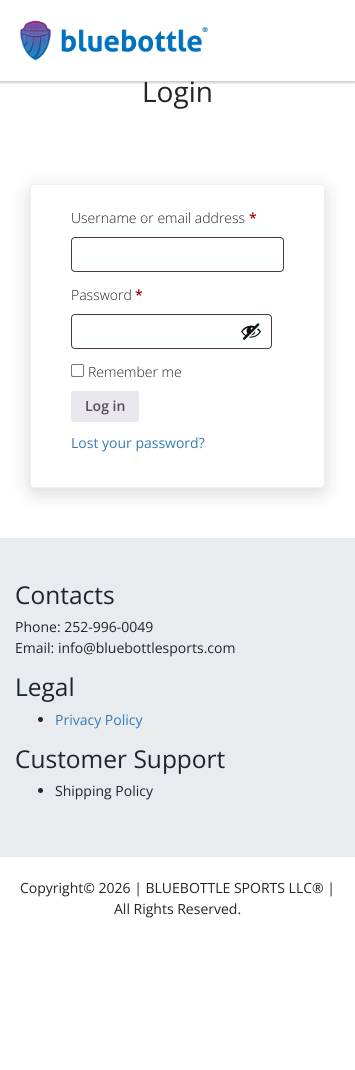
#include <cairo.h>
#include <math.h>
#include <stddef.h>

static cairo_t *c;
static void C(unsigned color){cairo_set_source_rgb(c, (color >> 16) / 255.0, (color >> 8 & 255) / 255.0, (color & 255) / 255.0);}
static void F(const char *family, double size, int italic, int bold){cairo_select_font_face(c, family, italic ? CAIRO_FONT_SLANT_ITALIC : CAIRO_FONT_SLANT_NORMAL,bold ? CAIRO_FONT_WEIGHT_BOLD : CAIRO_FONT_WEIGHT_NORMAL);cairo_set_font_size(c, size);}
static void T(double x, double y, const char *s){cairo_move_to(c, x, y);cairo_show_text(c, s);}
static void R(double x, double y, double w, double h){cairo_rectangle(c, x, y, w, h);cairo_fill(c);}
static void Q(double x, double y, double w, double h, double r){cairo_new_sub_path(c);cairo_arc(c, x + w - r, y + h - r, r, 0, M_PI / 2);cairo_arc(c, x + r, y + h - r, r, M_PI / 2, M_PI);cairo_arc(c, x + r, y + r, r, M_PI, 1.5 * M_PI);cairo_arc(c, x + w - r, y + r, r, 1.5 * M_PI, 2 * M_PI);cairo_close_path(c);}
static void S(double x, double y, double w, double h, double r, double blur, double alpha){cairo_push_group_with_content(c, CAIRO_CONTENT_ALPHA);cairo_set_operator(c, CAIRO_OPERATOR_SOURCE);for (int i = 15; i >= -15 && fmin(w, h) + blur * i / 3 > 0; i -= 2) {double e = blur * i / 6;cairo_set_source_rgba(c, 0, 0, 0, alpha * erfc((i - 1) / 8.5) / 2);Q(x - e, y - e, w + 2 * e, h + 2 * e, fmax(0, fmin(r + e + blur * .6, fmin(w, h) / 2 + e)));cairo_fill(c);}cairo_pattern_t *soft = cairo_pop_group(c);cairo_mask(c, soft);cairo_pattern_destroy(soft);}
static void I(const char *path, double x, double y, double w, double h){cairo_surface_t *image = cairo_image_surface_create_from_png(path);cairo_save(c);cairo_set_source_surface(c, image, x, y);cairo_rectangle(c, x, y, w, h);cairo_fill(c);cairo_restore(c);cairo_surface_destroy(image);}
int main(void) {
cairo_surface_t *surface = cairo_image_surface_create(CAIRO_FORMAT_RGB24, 355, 1070);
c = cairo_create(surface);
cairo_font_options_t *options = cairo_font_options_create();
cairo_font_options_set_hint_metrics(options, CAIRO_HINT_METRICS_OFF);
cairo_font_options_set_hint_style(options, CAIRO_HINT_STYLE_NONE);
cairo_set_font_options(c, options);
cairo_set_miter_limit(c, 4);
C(0xffffff);
cairo_paint(c);
cairo_save(c);
cairo_rectangle(c,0,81,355,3);
cairo_clip(c);
C(0x000000);
S(0,2,355,81,0,1,.2);
cairo_restore(c);
I("1.png",20,20,188,41);
F("Open Sans",28,0,0);
C(0x212529);
T(142,102,"Login");
cairo_save(c);
cairo_set_fill_rule(c,CAIRO_FILL_RULE_EVEN_ODD);
cairo_new_path(c);
cairo_move_to(c,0,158);
cairo_line_to(c,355,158);
cairo_line_to(c,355,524);
cairo_line_to(c,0,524);
cairo_close_path(c);
cairo_move_to(c,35,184);
cairo_line_to(c,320,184);
cairo_curve_to(c,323,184,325,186,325,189);
cairo_line_to(c,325,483);
cairo_curve_to(c,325,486,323,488,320,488);
cairo_line_to(c,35,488);
cairo_curve_to(c,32,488,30,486,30,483);
cairo_line_to(c,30,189);
cairo_curve_to(c,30,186,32,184,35,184);
cairo_close_path(c);
cairo_clip(c);
C(0x000000);
S(30,189,295,304,5,10,.15);
cairo_restore(c);
Q(30.5,184.5,294,303,4.5);
C(0xeeeeee);
cairo_set_line_width(c,1);
cairo_stroke(c);
F("Open Sans Light",14,0,0);
C(0x212529);
T(71,223,"Username or email address");
F("Open Sans SemiBold",14,0,0);
C(0xaa0000);
T(249,223,"*");
Q(71.5,237.5,212,34,3.5);
C(0x4d3939);
cairo_stroke(c);
F("Open Sans Light",14,0,0);
C(0x212529);
T(71,300,"Password");
F("Open Sans SemiBold",14,0,0);
C(0xaa0000);
T(135,300,"*");
Q(71.5,314.5,200,34,3.5);
C(0x4d3939);
cairo_stroke(c);
I("2.png",241,323,20,17);
Q(71.5,364.5,12,12,1.5);
C(0x767676);
cairo_stroke(c);
F("Open Sans Light",14,0,0);
C(0x212529);
T(88,377,"Remember me");
C(0xe9e6ed);
Q(71,391,68,31,3);
cairo_fill(c);
F("Open Sans SemiBold",14,0,0);
C(0x515151);
T(85,411,"Log in");
F("Open Sans",14,0,0);
C(0x337ab7);
T(71,448,"Lost your password?");
C(0xe9ecef);
R(0,538,355,319);
F("Open Sans",24.5,0,0);
C(0x212529);
T(15,604,"Contacts");
F("Open Sans",14,0,0);
T(15,632,"Phone: 252-996-0049");
T(15,653,"Email: info@bluebottlesports.com");
F("Open Sans",24.5,0,0);
T(15,696,"Legal");
cairo_new_path(c);
cairo_arc(c,40.5,719.5,2.5,0,2 * M_PI);
cairo_fill(c);
F("Open Sans",14,0,0);
C(0x337ab7);
T(55,725,"Privacy Policy");
F("Open Sans",24.5,0,0);
C(0x212529);
T(15,768,"Customer Support");
cairo_new_path(c);
cairo_arc(c,40.5,790.5,2.5,0,2 * M_PI);
cairo_fill(c);
F("Open Sans",14,0,0);
T(55,796,"Shipping Policy");
T(20,893,"Copyright© 2026 | BLUEBOTTLE SPORTS LLC® |");
T(114,914,"All Rights Reserved.");
cairo_surface_write_to_png(surface, "o.png");
cairo_font_options_destroy(options);
cairo_destroy(c);
cairo_surface_destroy(surface);
return 0;
}
